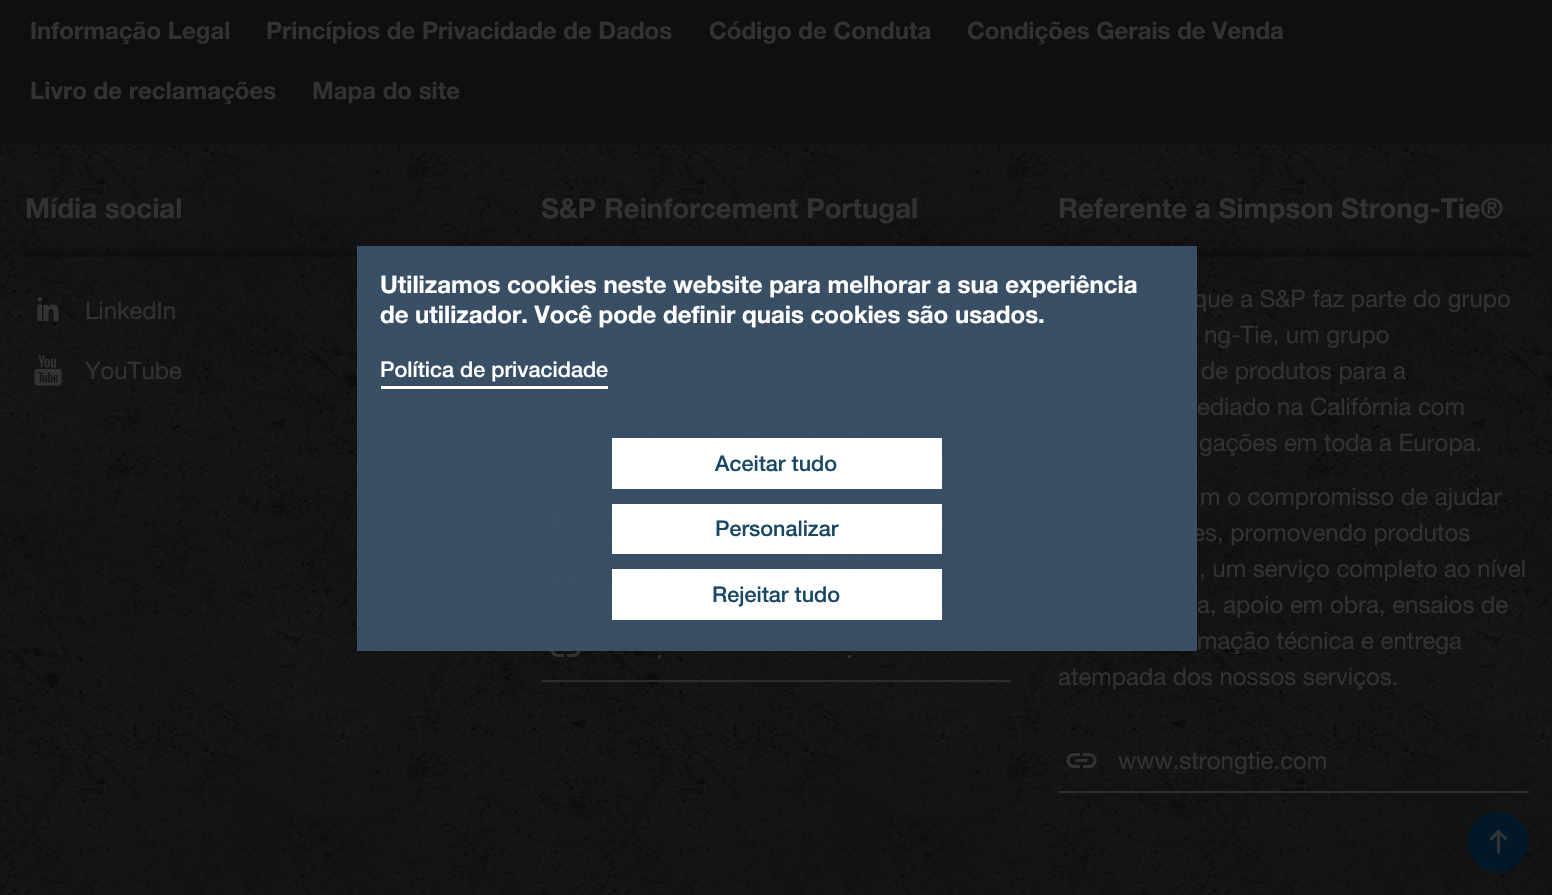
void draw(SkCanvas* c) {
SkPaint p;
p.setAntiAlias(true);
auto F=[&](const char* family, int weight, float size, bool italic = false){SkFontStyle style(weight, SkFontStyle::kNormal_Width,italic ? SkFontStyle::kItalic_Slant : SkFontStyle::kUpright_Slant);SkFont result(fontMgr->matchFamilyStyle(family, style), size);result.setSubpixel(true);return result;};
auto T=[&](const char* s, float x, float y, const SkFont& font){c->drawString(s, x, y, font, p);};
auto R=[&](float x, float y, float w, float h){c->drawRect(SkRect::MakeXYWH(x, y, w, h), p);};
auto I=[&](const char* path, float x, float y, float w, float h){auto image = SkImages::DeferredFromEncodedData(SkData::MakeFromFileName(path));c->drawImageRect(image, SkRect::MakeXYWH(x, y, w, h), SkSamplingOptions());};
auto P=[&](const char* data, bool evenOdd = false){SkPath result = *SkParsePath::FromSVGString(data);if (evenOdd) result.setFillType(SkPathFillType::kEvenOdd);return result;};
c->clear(0xff0f0f0f);
auto f1 = F("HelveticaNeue",700,24);
p.setColor(0xff323232);
T("Informação Legal",30,39,f1);
T("Princípios de Privacidade de Dados",266,39,f1);
T("Código de Conduta",709,39,f1);
T("Condições Gerais de Venda",967,39,f1);
T("Livro de reclamações",30,99,f1);
T("Mapa do site",312,99,f1);
I("1.png",0,144,1552,751);
p.setColor(0xff0f0f0f);
R(24,251,471,6);
auto f2 = F("HelveticaNeue",700,27.6);
p.setColor(0xff323232);
T("Mídia social",25,218,f2);
I("2.png",37,297,22,24);
auto f3 = F("HelveticaNeue",400,24);
T("LinkedIn",85,319,f3);
I("3.png",34,355,28,31);
T("YouTube",85,379,f3);
p.setColor(0xff0f0f0f);
R(542,251,469,6);
p.setColor(0xff323232);
T("S&P Reinforcement Portugal",541,218,f2);
I("4.png",552,513,27,27);
p.setColor(0xff2c2c2c);
R(542,557,469,2);
I("5.png",550,576,31,24);
R(542,618,469,2);
I("6.png",550,642,31,15);
R(542,680,469,2);
p.setColor(0xff323232);
T(".",656,658,f3);
T(".",846,658,f3);
p.setColor(0xff0f0f0f);
R(1058,251,471,6);
p.setColor(0xff323232);
T("Referente a Simpson Strong-Tie®",1058,218,f2);
T("que a S&P faz parte do grupo",1193,307,f3);
T("ng-Tie, um grupo",1204,343,f3);
T("de produtos para a",1201,379,f3);
T("ediado na Califórnia com",1197,415,f3);
T("gações em toda a Europa.",1199,451,f3);
T("m o compromisso de ajudar",1200,505,f3);
T("es, promovendo produtos",1192,541,f3);
T(", um serviço completo ao nível",1199,577,f3);
T("a, apoio em obra, ensaios de",1197,613,f3);
T("mação técnica e entrega",1197,649,f3);
T("atempada dos nossos serviços.",1058,685,f3);
I("7.png",1066,753,31,15);
p.setColor(0xff2c2c2c);
R(1058,791,471,2);
p.setColor(0xff323232);
T("www.strongtie.com",1118,769,f3);
p.setColor(0xf23a5168);
R(357,246,840,405);
p.setColor(0xffffffff);
T("Utilizamos cookies neste website para melhorar a sua experiência",380,293,f1);
T("de utilizador. Você pode definir quais cookies são usados.",380,323,f1);
R(381,386,227,3);
auto f4 = F("HelveticaNeue",500,21.6);
T("Política de privacidade",380,377,f4);
R(612,438,330,51);
p.setColor(0xff184865);
T("Aceitar tudo",715,471,f4);
p.setColor(0xffffffff);
R(612,504,330,50);
p.setColor(0xff184865);
T("Personalizar",715,536,f4);
p.setColor(0xffffffff);
R(612,569,330,51);
p.setColor(0xff184865);
T("Rejeitar tudo",712,602,f4);
p.setColor(0xff001827);
c->drawPath(P("M1468 842c0-17 14-30 30-30c17 0 30 13 30 30c0 16-13 30-30 30c-16 0-30-14-30-30z"),p);
I("8.png",1489,829,19,25);
}
